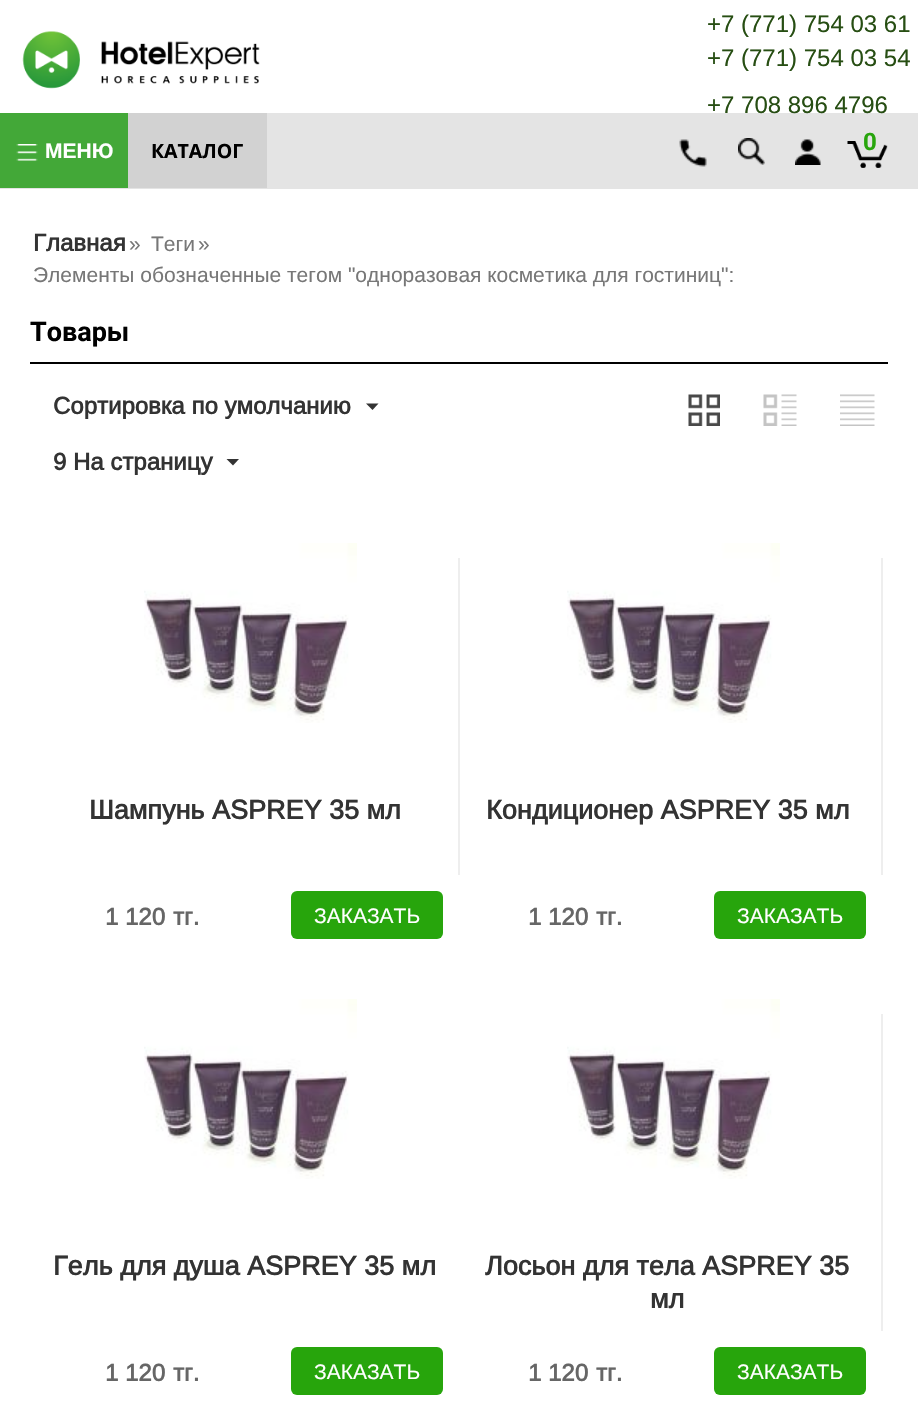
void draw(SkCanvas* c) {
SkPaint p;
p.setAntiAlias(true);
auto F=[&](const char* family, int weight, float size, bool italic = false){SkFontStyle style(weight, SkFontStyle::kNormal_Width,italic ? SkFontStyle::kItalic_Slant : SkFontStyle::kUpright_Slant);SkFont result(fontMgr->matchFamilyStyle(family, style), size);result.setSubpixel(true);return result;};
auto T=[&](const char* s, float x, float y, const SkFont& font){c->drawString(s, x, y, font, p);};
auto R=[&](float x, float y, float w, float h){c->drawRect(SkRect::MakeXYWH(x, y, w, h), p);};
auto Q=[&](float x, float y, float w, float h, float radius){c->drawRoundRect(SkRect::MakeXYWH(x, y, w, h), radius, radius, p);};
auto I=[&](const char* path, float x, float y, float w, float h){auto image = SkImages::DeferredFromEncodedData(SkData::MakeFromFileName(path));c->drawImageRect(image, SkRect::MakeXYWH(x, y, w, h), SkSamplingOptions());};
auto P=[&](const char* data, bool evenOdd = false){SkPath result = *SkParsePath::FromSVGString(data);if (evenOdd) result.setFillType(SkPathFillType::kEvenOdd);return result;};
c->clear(0xffffffff);
p.setColor(0xffe4e4e4);
R(0,113,918,76);
p.setColor(0xff43a838);
R(0,113,128,75);
I("1.png",16,144,22,17);
auto f1 = F("Liberation Sans",700,21);
p.setColor(0xffffffff);
T("МЕНЮ",45,158,f1);
p.setColor(0xffd2d2d2);
R(128,113,139,75);
auto f2 = F("Open Sans",700,19.5);
p.setColor(0xff000000);
T("КАТАЛОГ",151,158,f2);
I("2.png",679,139,28,28);
I("3.png",738,138,27,27);
I("4.png",22,31,238,58);
auto f3 = F("Arimo",400,24);
p.setColor(0xff274e13);
T("+7 (771) 754 03 61",707,32,f3);
T("+7 (771) 754 03 54",707,66,f3);
T("+7 708 896 4796",707,113,f3);
I("5.png",847,141,41,27);
auto f4 = F("Roboto",700,24);
p.setColor(0xff27a50c);
T("0",863,150,f4);
I("6.png",795,139,26,26);
auto f5 = F("Arimo",700,24);
p.setColor(0xff333333);
T("Главная",33,251,f5);
auto f6 = F("Arimo",400,21);
p.setColor(0xff777777);
T("»",129,251,f6);
T("Теги",151,251,f6);
T("»",198,251,f6);
T("Элементы обозначенные тегом \"одноразовая косметика для гостиниц\":",33,282,f6);
p.setColor(0xff000000);
R(30,362,858,2);
auto f7 = F("Roboto",700,27);
T("Товары",30,341,f7);
p.setColor(0xff333333);
T("Сортировка по умолчанию",53,414,f5);
c->drawPath(P("M372.5 410l-6.5-6.5h12.5z"),p);
I("7.png",688,394,32,32);
I("8.png",763,394,34,32);
I("9.png",840,394,35,32);
T("9 На страницу",53,470,f5);
c->drawPath(P("M233 465.5l-6.5-6.5h12.5z"),p);
I("10.png",144,543,213,180);
auto f8 = F("Arimo",700,27);
T("Шампунь ASPREY 35 мл",89,819,f8);
p.setColor(0xff666666);
T("1 120",105,925,f5);
T("тг.",173,925,f5);
p.setColor(0xff27a50c);
Q(291,891,152,48,6);
p.setColor(0xffffffff);
T("ЗАКАЗАТЬ",314,923,f6);
p.setColor(0xffeeeeee);
R(458,558,2,317);
I("11.png",567,543,213,180);
p.setColor(0xff333333);
T("Кондиционер ASPREY 35 мл",486,819,f8);
p.setColor(0xff666666);
T("1 120",528,925,f5);
T("тг.",596,925,f5);
p.setColor(0xff27a50c);
Q(714,891,152,48,6);
p.setColor(0xffffffff);
T("ЗАКАЗАТЬ",737,923,f6);
p.setColor(0xffeeeeee);
R(881,558,2,317);
I("10.png",144,999,213,180);
p.setColor(0xff333333);
T("Гель для душа ASPREY 35 мл",53,1275,f8);
p.setColor(0xff666666);
T("1 120",105,1381,f5);
T("тг.",173,1381,f5);
p.setColor(0xff27a50c);
Q(291,1347,152,48,6);
p.setColor(0xffffffff);
T("ЗАКАЗАТЬ",314,1379,f6);
I("11.png",567,999,213,180);
p.setColor(0xff333333);
T("Лосьон для тела ASPREY 35",485,1275,f8);
T("мл",650,1308,f8);
p.setColor(0xff666666);
T("1 120",528,1381,f5);
T("тг.",596,1381,f5);
p.setColor(0xff27a50c);
Q(714,1347,152,48,6);
p.setColor(0xffffffff);
T("ЗАКАЗАТЬ",737,1379,f6);
p.setColor(0xffeeeeee);
R(881,1014,2,317);
}
